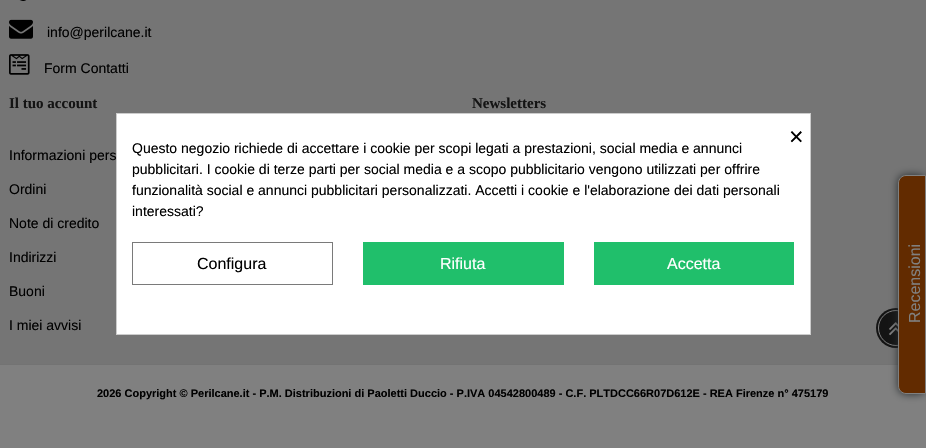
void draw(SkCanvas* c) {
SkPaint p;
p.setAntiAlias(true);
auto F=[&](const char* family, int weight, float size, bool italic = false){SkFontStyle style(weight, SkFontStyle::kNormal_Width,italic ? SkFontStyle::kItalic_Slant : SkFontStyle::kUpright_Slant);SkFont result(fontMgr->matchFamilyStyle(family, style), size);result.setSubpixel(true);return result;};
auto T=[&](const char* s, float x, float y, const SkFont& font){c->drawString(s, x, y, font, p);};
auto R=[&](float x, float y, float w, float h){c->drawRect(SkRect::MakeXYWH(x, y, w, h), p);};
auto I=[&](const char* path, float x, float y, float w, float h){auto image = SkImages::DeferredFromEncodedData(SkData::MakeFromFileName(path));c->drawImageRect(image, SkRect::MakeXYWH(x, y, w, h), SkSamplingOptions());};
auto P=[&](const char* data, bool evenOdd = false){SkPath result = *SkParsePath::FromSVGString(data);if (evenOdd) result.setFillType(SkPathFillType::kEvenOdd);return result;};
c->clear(0xff808080);
p.setColor(0xff757575);
R(0,0,926,364);
I("1.png",19,0,8,1);
I("2.png",9,19,24,20);
auto f1 = F("Liberation Sans",400,14);
p.setColor(0xff000000);
T("info@perilcane.it",47,37,f1);
I("3.png",9,54,21,21);
T("Form Contatti",44,73,f1);
auto f2 = F("Liberation Serif",700,15);
p.setColor(0xff141414);
T("Il tuo account",9,108,f2);
p.setColor(0xff000000);
T("Informazioni pers",9,160,f1);
T("Ordini",9,194,f1);
T("Note di credito",9,228,f1);
T("Indirizzi",9,262,f1);
T("Buoni",9,296,f1);
T("I miei avvisi",9,330,f1);
p.setColor(0xff141414);
T("Newsletters",472,108,f2);
p.setColor(0xff737373);
R(0,364,898,1);
p.setColor(0xff141414);
c->drawCircle(896,328,20,p);
p.setStroke(true);
p.setStrokeWidth(1);
p.setColor(0xff808080);
c->drawCircle(896,328,17.5,p);
I("4.png",889,322,9,14);
p.setStroke(false);
p.setColor(0xff262b2d);
p.setMaskFilter(SkMaskFilter::MakeBlur(kNormal_SkBlurStyle, 4));
c->drawRoundRect(SkRect::MakeXYWH(898,175,28,219),8,8,p);
p.setMaskFilter(nullptr);
p.setColor(0xff622b00);
c->drawPath(P("M906 175.5h19.5v218h-19.5c-4 0-7.5-3.5-7.5-7.5v-203c0-4 3.5-7.5 7.5-7.5z"),p);
p.setStroke(true);
p.setColor(0xff808080);
c->drawPath(P("M906 175.5h19.5v218h-19.5c-4 0-7.5-3.5-7.5-7.5v-203c0-4 3.5-7.5 7.5-7.5z"),p);
auto f3 = F("Liberation Sans",400,16);
p.setStroke(false);
c->save();
c->rotate(-90,920,323);
T("Recensioni",920,323,f3);
c->restore();
auto f4 = F("Liberation Sans",700,11);
p.setColor(0xff000000);
T("2026 Copyright © Perilcane.it - P.M. Distribuzioni di Paoletti Duccio - P.IVA 04542800489 - C.F. PLTDCC66R07D612E - REA Firenze n° 475179",97,397,f4);
p.setColor(0xffffffff);
c->drawRect(SkRect::MakeXYWH(116.5,113.5,694,221),p);
p.setStroke(true);
p.setColor(0xffcccccc);
c->drawRect(SkRect::MakeXYWH(116.5,113.5,694,221),p);
auto f5 = F("Liberation Sans",400,25);
p.setStroke(false);
p.setColor(0xff000000);
T("×",789,145,f5);
T("Questo negozio richiede di accettare i cookie per scopi legati a prestazioni, social media e annunci",132,153,f1);
T("pubblicitari. I cookie di terze parti per social media e a scopo pubblicitario vengono utilizzati per offrire",132,174,f1);
T("funzionalità social e annunci pubblicitari personalizzati. Accetti i cookie e l'elaborazione dei dati personali",132,195,f1);
T("interessati?",132,216,f1);
p.setStroke(true);
p.setColor(0xff7a7a7a);
c->drawRect(SkRect::MakeXYWH(132.5,242.5,200,42),p);
p.setStroke(false);
p.setColor(0xff000000);
T("Configura",197,269,f3);
p.setColor(0xff20bf6b);
R(363,242,201,43);
p.setColor(0xffffffff);
T("Rifiuta",440,269,f3);
p.setColor(0xff20bf6b);
R(594,242,200,43);
p.setColor(0xffffffff);
T("Accetta",667,269,f3);
}
